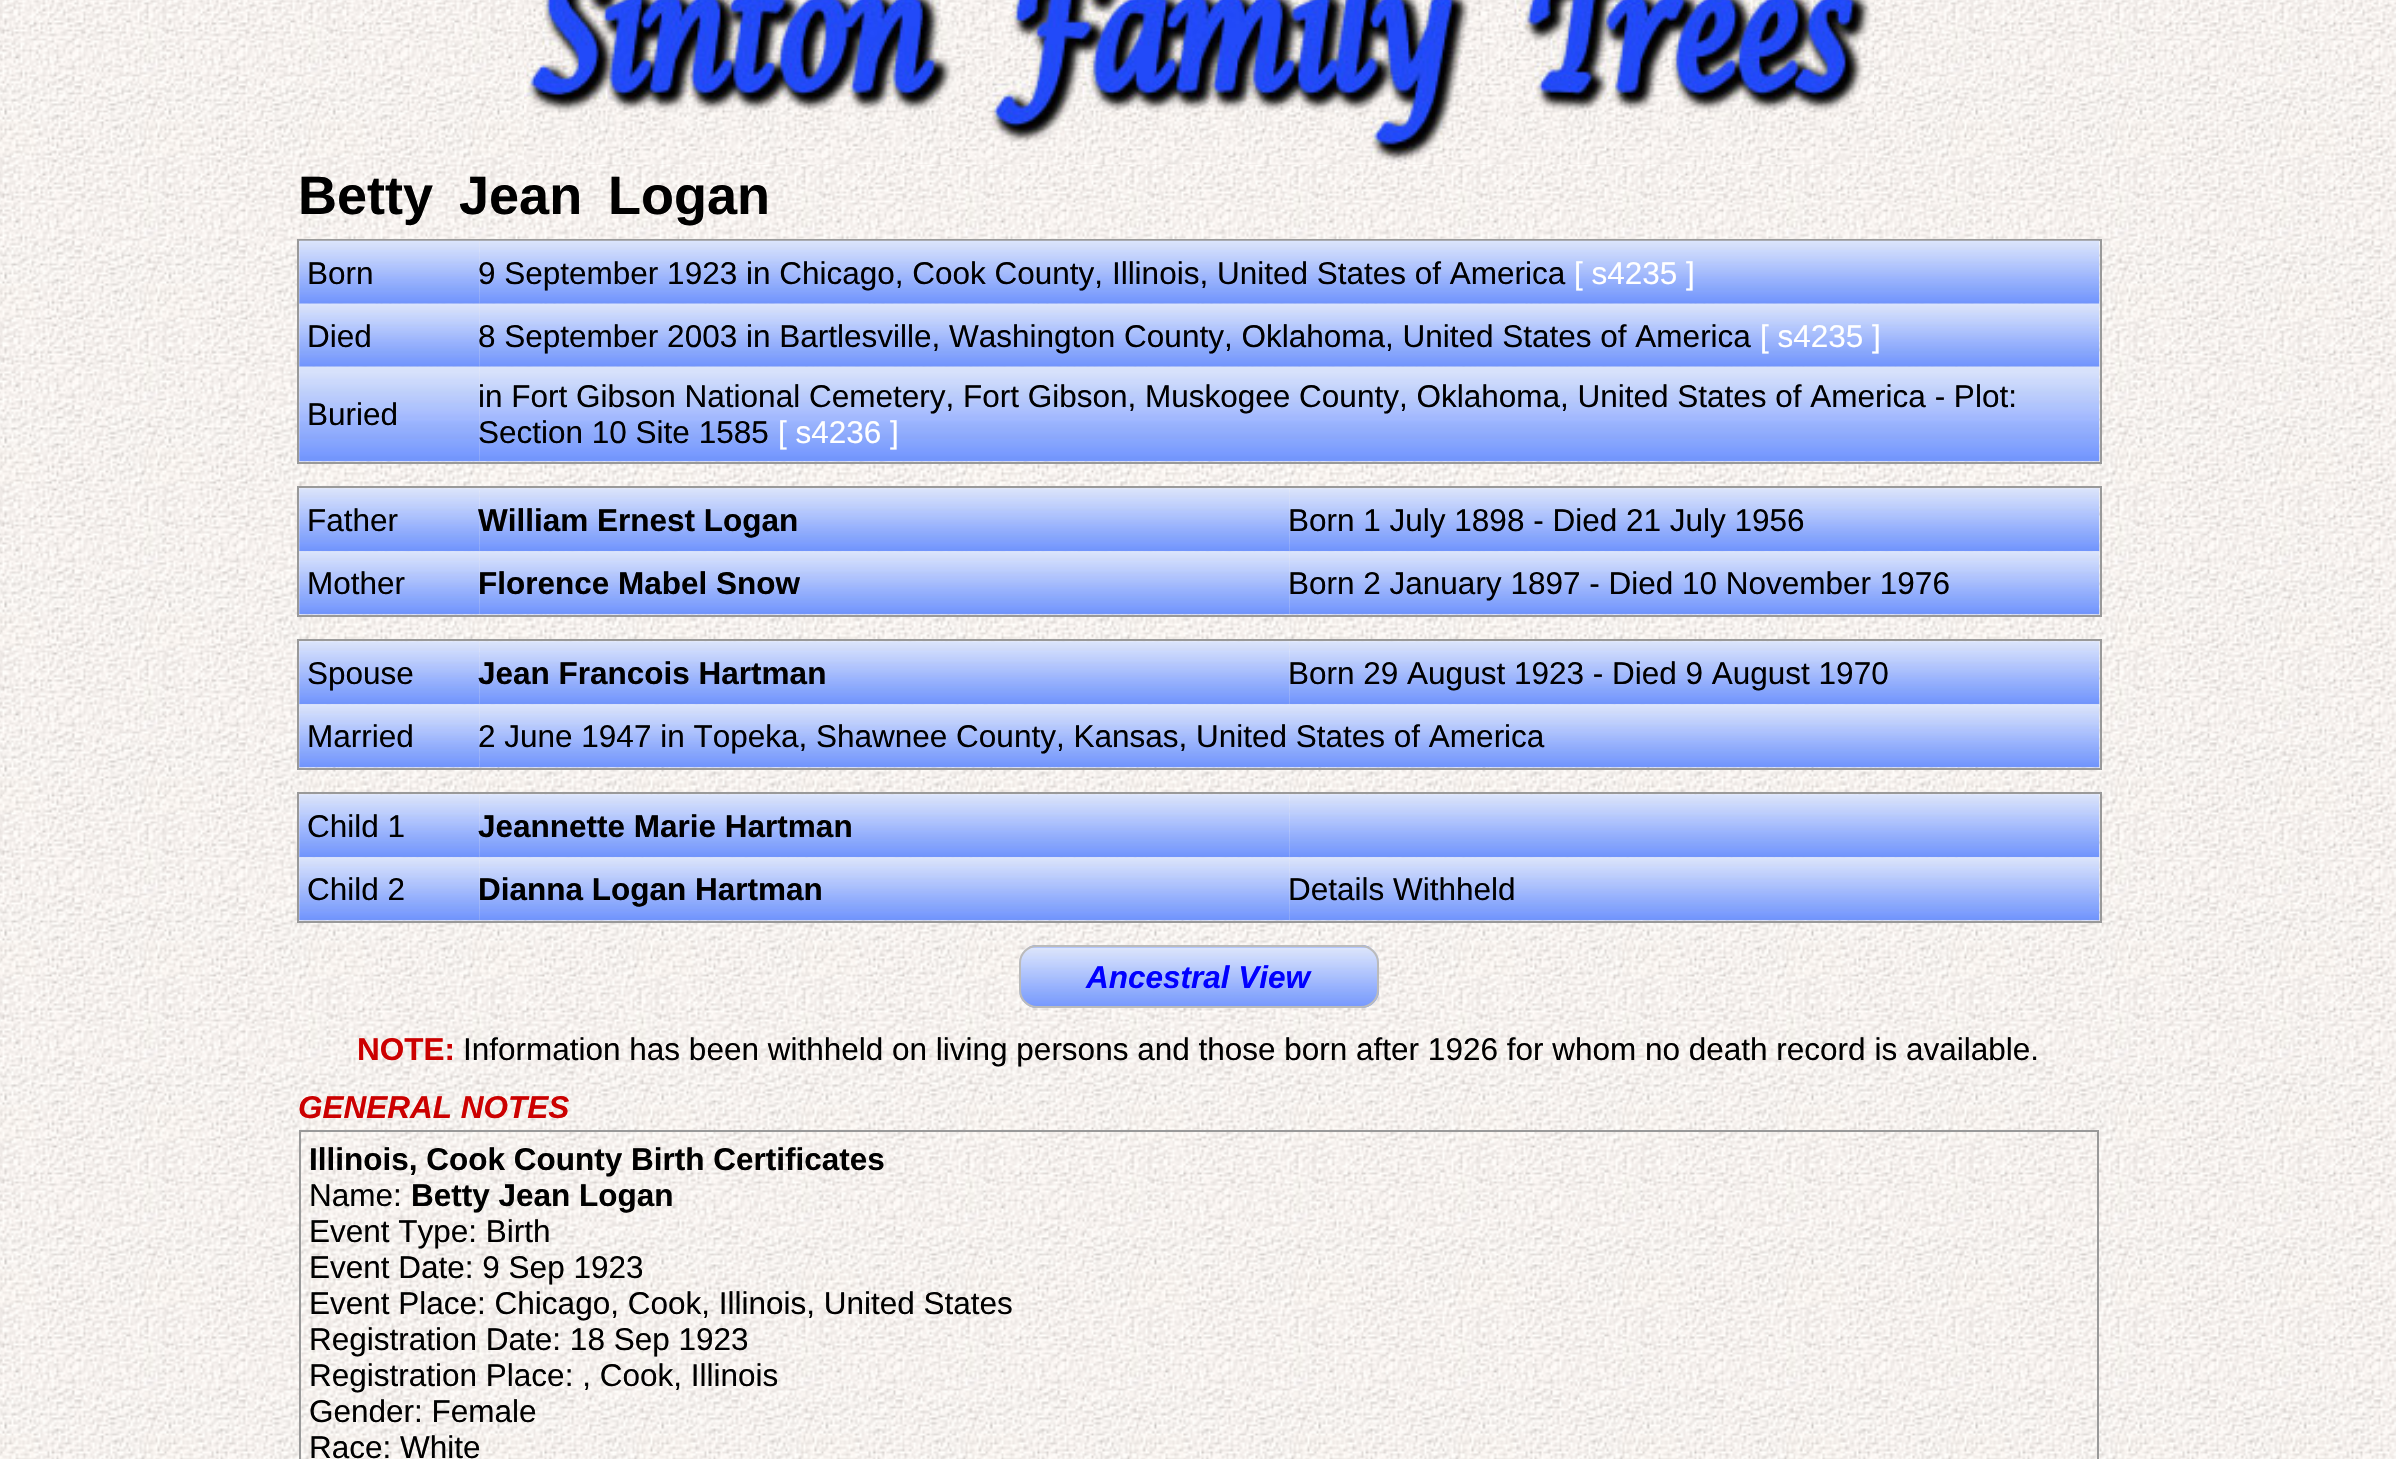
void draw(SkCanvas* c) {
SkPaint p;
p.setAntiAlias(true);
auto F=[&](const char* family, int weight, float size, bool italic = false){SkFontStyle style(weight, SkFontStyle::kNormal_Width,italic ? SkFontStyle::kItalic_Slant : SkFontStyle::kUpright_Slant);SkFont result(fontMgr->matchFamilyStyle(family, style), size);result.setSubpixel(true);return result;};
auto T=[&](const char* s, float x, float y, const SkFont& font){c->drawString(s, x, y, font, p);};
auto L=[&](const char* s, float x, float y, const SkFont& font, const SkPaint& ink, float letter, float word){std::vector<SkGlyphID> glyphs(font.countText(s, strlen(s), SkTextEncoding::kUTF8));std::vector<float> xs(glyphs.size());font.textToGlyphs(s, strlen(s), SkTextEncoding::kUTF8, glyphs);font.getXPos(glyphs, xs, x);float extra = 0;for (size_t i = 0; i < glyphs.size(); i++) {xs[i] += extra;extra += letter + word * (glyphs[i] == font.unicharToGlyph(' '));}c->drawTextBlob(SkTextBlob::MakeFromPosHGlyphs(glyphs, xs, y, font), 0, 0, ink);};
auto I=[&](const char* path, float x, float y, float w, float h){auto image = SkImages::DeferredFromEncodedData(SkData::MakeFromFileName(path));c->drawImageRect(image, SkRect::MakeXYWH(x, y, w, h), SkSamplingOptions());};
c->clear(0xffffffff);
I("1.png",0,0,2396,1459);
I("2.png",524,0,1351,165);
auto f1 = F("Liberation Sans",700,54);
p.setColor(0xff000000);
L("Betty Jean Logan",298,214,f1,p,0,11);
p.setStroke(true);
p.setStrokeWidth(2);
p.setColor(0xff999999);
c->drawRect(SkRect::MakeXYWH(298,240,1803,223),p);
I("3.png",299,240,181,64);
auto f2 = F("Liberation Sans",400,31.5);
p.setStroke(false);
p.setColor(0xff000000);
T("Born",307,284,f2);
I("4.png",479,240,1621,64);
T("9 September 1923 in Chicago, Cook County, Illinois, United States of America",478,284,f2);
p.setColor(0xffffffff);
T("[ s4235 ]",1574,284,f2);
I("5.png",299,303,181,64);
p.setColor(0xff000000);
T("Died",307,347,f2);
I("6.png",479,303,1621,64);
T("8 September 2003 in Bartlesville, Washington County, Oklahoma, United States of America",478,347,f2);
p.setColor(0xffffffff);
T("[ s4235 ]",1760,347,f2);
I("7.png",299,366,181,96);
p.setColor(0xff000000);
T("Buried",307,425,f2);
I("8.png",479,366,1621,96);
T("in Fort Gibson National Cemetery, Fort Gibson, Muskogee County, Oklahoma, United States of America - Plot:",478,407,f2);
T("Section 10 Site 1585",478,443,f2);
p.setColor(0xffffffff);
T("[ s4236 ]",778,443,f2);
p.setStroke(true);
p.setColor(0xff999999);
c->drawRect(SkRect::MakeXYWH(298,487,1803,129),p);
I("9.png",299,488,181,64);
p.setStroke(false);
p.setColor(0xff000000);
T("Father",307,531,f2);
I("10.png",479,488,811,64);
auto f3 = F("Liberation Sans",700,31.5);
T("William Ernest Logan",478,531,f3);
I("11.png",1289,488,811,64);
T("Born 1 July 1898 - Died 21 July 1956",1288,531,f2);
I("12.png",299,551,181,64);
T("Mother",307,594,f2);
I("13.png",479,551,811,64);
T("Florence Mabel Snow",478,594,f3);
I("14.png",1289,551,811,64);
T("Born 2 January 1897 - Died 10 November 1976",1288,594,f2);
p.setStroke(true);
p.setColor(0xff999999);
c->drawRect(SkRect::MakeXYWH(298,640,1803,129),p);
I("15.png",299,641,181,64);
p.setStroke(false);
p.setColor(0xff000000);
T("Spouse",307,684,f2);
I("16.png",479,641,811,64);
T("Jean Francois Hartman",478,684,f3);
I("17.png",1289,641,811,64);
T("Born 29 August 1923 - Died 9 August 1970",1288,684,f2);
I("18.png",299,704,181,64);
T("Married",307,747,f2);
I("19.png",479,704,1621,64);
T("2 June 1947 in Topeka, Shawnee County, Kansas, United States of America",478,747,f2);
p.setStroke(true);
p.setColor(0xff999999);
c->drawRect(SkRect::MakeXYWH(298,793,1803,129),p);
I("20.png",299,794,181,64);
p.setStroke(false);
p.setColor(0xff000000);
T("Child 1",307,837,f2);
I("21.png",479,794,811,64);
T("Jeannette Marie Hartman",478,837,f3);
I("22.png",1289,794,811,64);
I("23.png",299,857,181,64);
T("Child 2",307,900,f2);
I("24.png",479,857,811,64);
T("Dianna Logan Hartman",478,900,f3);
I("25.png",1289,857,811,64);
T("Details Withheld",1288,900,f2);
I("26.png",1019,945,361,63);
p.setStroke(true);
p.setColor(0xffbbbbbb);
c->drawRoundRect(SkRect::MakeXYWH(1020,946,358,61),17,17,p);
auto f4 = F("Liberation Sans",700,31.5,true);
p.setStroke(false);
p.setColor(0xff0000ff);
T("Ancestral View",1086,988,f4);
p.setColor(0xffcc0000);
T("NOTE:",357,1060,f3);
p.setColor(0xff000000);
T("Information has been withheld on living persons and those born after 1926 for whom no death record is available.",463,1060,f2);
p.setColor(0xffcc0000);
T("GENERAL NOTES",298,1118,f4);
p.setStroke(true);
p.setColor(0xff999999);
c->drawRect(SkRect::MakeXYWH(300,1131,1798,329),p);
p.setStroke(false);
p.setColor(0xff000000);
T("Illinois, Cook County Birth Certificates",309,1170,f3);
T("Name:",309,1206,f2);
T("Betty Jean Logan",411,1206,f3);
T("Event Type: Birth",309,1242,f2);
T("Event Date: 9 Sep 1923",309,1278,f2);
T("Event Place: Chicago, Cook, Illinois, United States",309,1314,f2);
T("Registration Date: 18 Sep 1923",309,1350,f2);
T("Registration Place: , Cook, Illinois",309,1386,f2);
T("Gender: Female",309,1422,f2);
T("Race: White",309,1458,f2);
}
